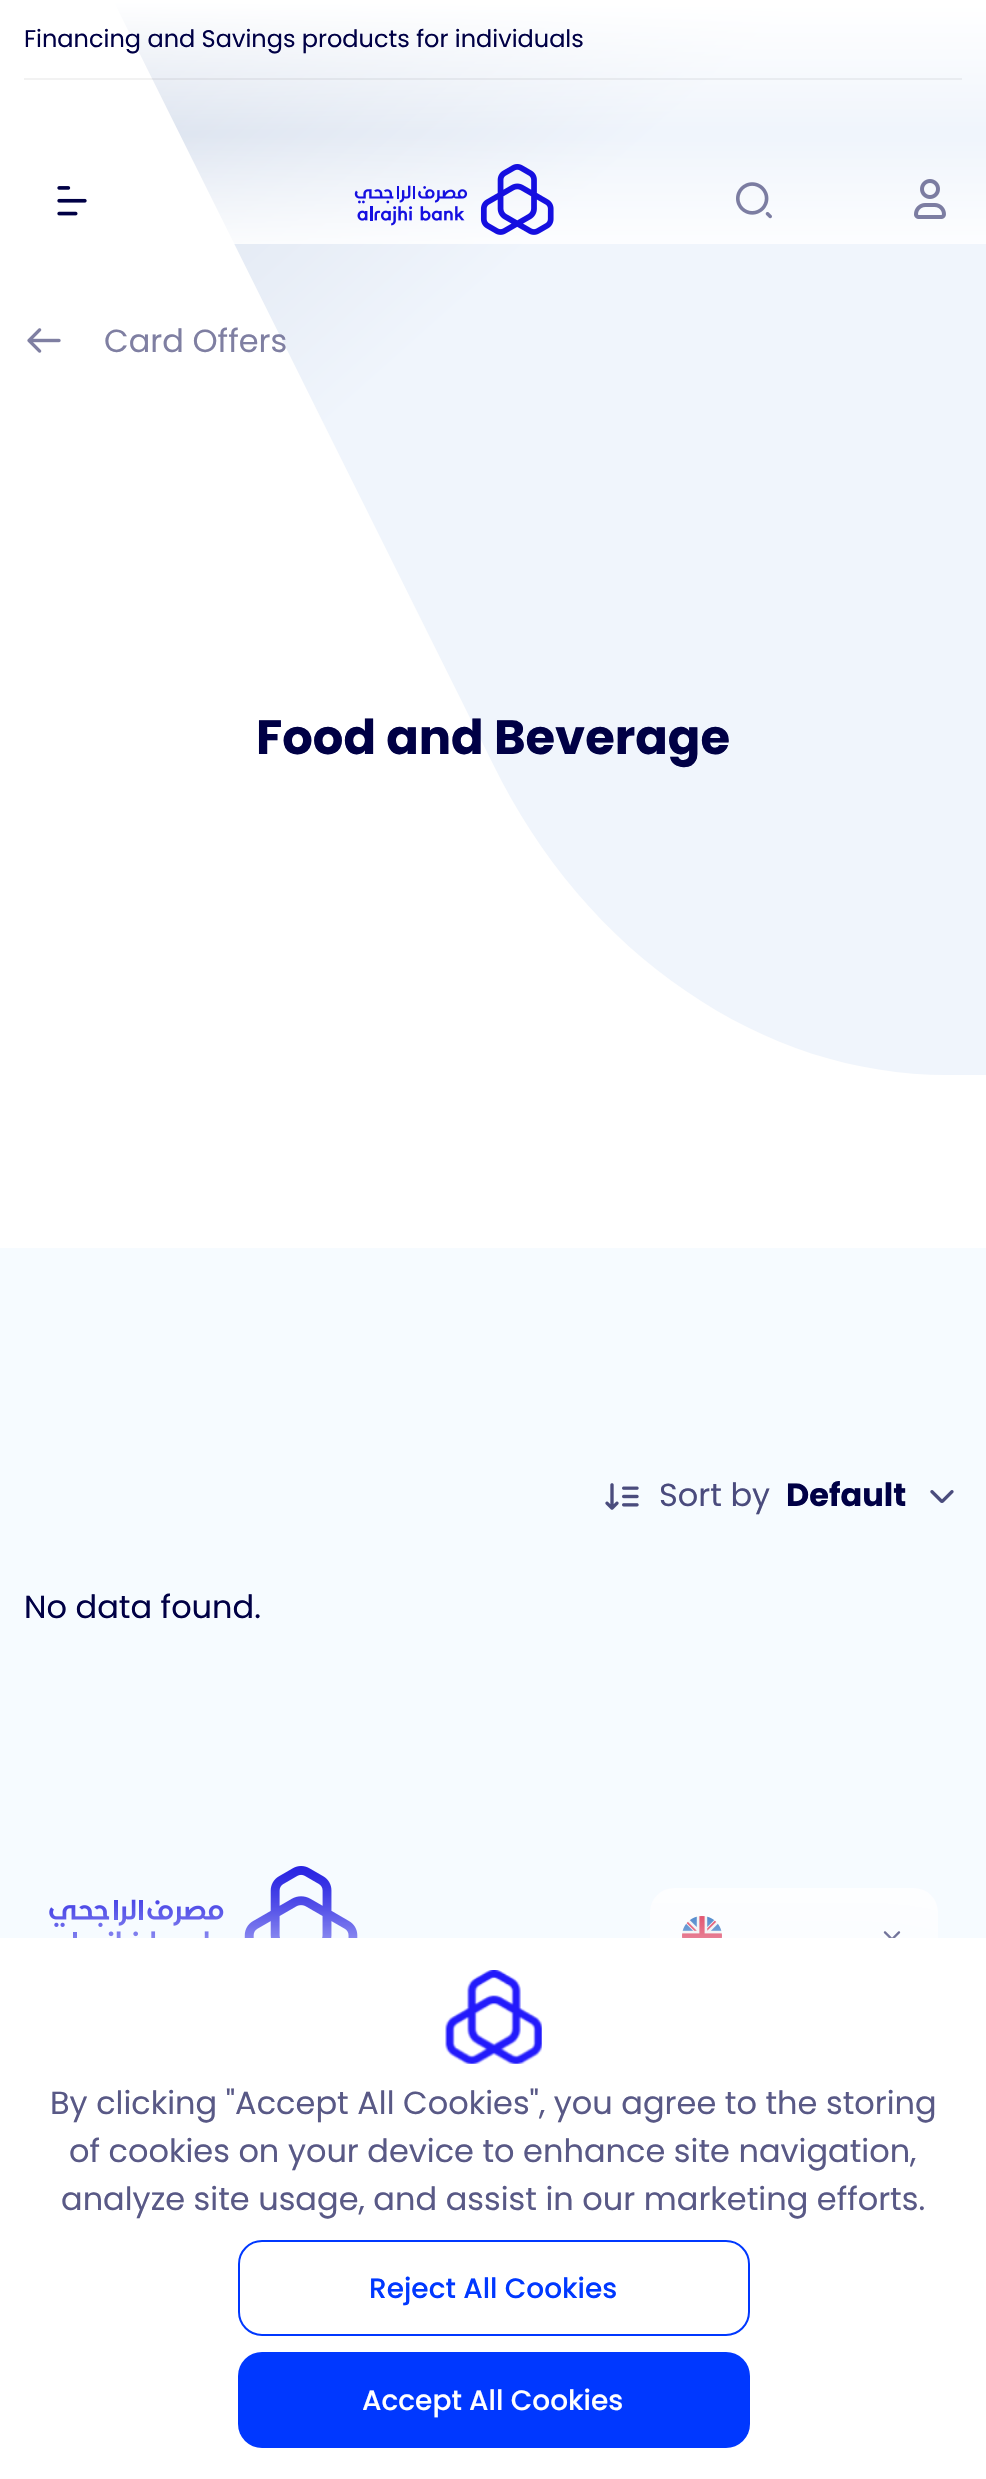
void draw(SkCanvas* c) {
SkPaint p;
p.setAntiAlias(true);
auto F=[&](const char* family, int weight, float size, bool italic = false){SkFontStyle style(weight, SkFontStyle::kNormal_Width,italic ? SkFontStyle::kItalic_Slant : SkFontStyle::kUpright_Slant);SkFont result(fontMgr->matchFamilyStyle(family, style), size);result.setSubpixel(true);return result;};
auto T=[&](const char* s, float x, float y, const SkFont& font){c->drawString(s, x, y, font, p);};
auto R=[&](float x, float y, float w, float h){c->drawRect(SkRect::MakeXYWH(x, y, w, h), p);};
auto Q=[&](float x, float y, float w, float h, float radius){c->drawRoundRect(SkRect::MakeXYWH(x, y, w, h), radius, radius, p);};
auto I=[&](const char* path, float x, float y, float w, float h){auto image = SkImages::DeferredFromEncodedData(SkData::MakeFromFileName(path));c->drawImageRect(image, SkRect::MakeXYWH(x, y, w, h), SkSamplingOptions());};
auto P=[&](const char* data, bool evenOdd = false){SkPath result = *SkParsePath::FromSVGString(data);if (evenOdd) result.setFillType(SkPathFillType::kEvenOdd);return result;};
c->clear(0xfff6fbff);
p.setColor(0xffffffff);
R(0,1,986,1247);
{
const SkColor colors[] = {0xffd3dbe9,0xfff0f5fc};
const float stops[] = {0,.35};
const SkPoint ends[] = {{-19,17}, {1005,1167}};
p.setShader(SkGradientShader::MakeLinear(ends, colors, stops, 2, SkTileMode::kClamp));
p.setAlpha(255);
}
c->drawPath(P("M493 764c46 94 113 173 193 227c80 55 169 84 262 84h38v-1075h-873z"),p);
{
const SkColor colors[] = {0xffffffff,0x00ffffff,0xffffffff};
const float stops[] = {0,.5,1};
const SkPoint ends[] = {{493,0}, {493,268}};
p.setShader(SkGradientShader::MakeLinear(ends, colors, stops, 3, SkTileMode::kClamp));
p.setAlpha(255);
}
R(0,0,986,244);
p.setShader(nullptr);
p.setColor(0x0d000000);
R(24,78,938,2);
auto f1 = F("Poppins",400,24);
p.setColor(0xff000045);
T("Financing and Savings products for individuals",24,47,f1);
I("1.png",57,186,30,30);
I("2.png",354,164,200,71);
I("3.png",736,182,36,37);
I("4.png",914,179,32,40);
I("5.png",27,328,34,25);
auto f2 = F("Poppins",400,32);
p.setColor(0xff7f7fa2);
T("Card Offers",104,352,f2);
auto f3 = F("Poppins",700,48);
p.setColor(0xff000045);
T("Food and Beverage",256,754,f3);
I("6.png",605,1483,34,27);
p.setColor(0xff4a4b7d);
T("Sort by",659,1506,f2);
auto f4 = F("Poppins",700,32);
p.setColor(0xff000045);
T("Default",786,1506,f4);
I("7.png",930,1490,24,13);
T("No data found.",24,1618,f2);
I("8.png",49,1866,309,72);
p.setColor(0xffffffff);
Q(650,1888,288,96,24);
I("9.png",682,1916,40,22);
I("10.png",883,1931,18,7);
p.setColor(0xfff7fbff);
p.setMaskFilter(SkMaskFilter::MakeBlur(kNormal_SkBlurStyle, 50));
c->drawRect(SkRect::MakeXYWH(0,1938,986,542),p);
p.setMaskFilter(nullptr);
p.setColor(0xffffffff);
R(0,1938,986,541);
I("11.png",445,1970,97,94);
p.setColor(0xff595986);
T("By clicking \"Accept All Cookies\", you agree to the storing",50,2114,f2);
T("of cookies on your device to enhance site navigation,",69,2162,f2);
T("analyze site usage, and assist in our marketing efforts.",61,2210,f2);
p.setStroke(true);
p.setStrokeWidth(2);
p.setColor(0xff0038ff);
c->drawRoundRect(SkRect::MakeXYWH(239,2241,510,94),23,23,p);
auto f5 = F("Poppins",500,28);
p.setStroke(false);
T("Reject All Cookies",369,2298,f5);
Q(238,2352,512,96,24);
p.setColor(0xffffffff);
T("Accept All Cookies",362,2410,f5);
}
